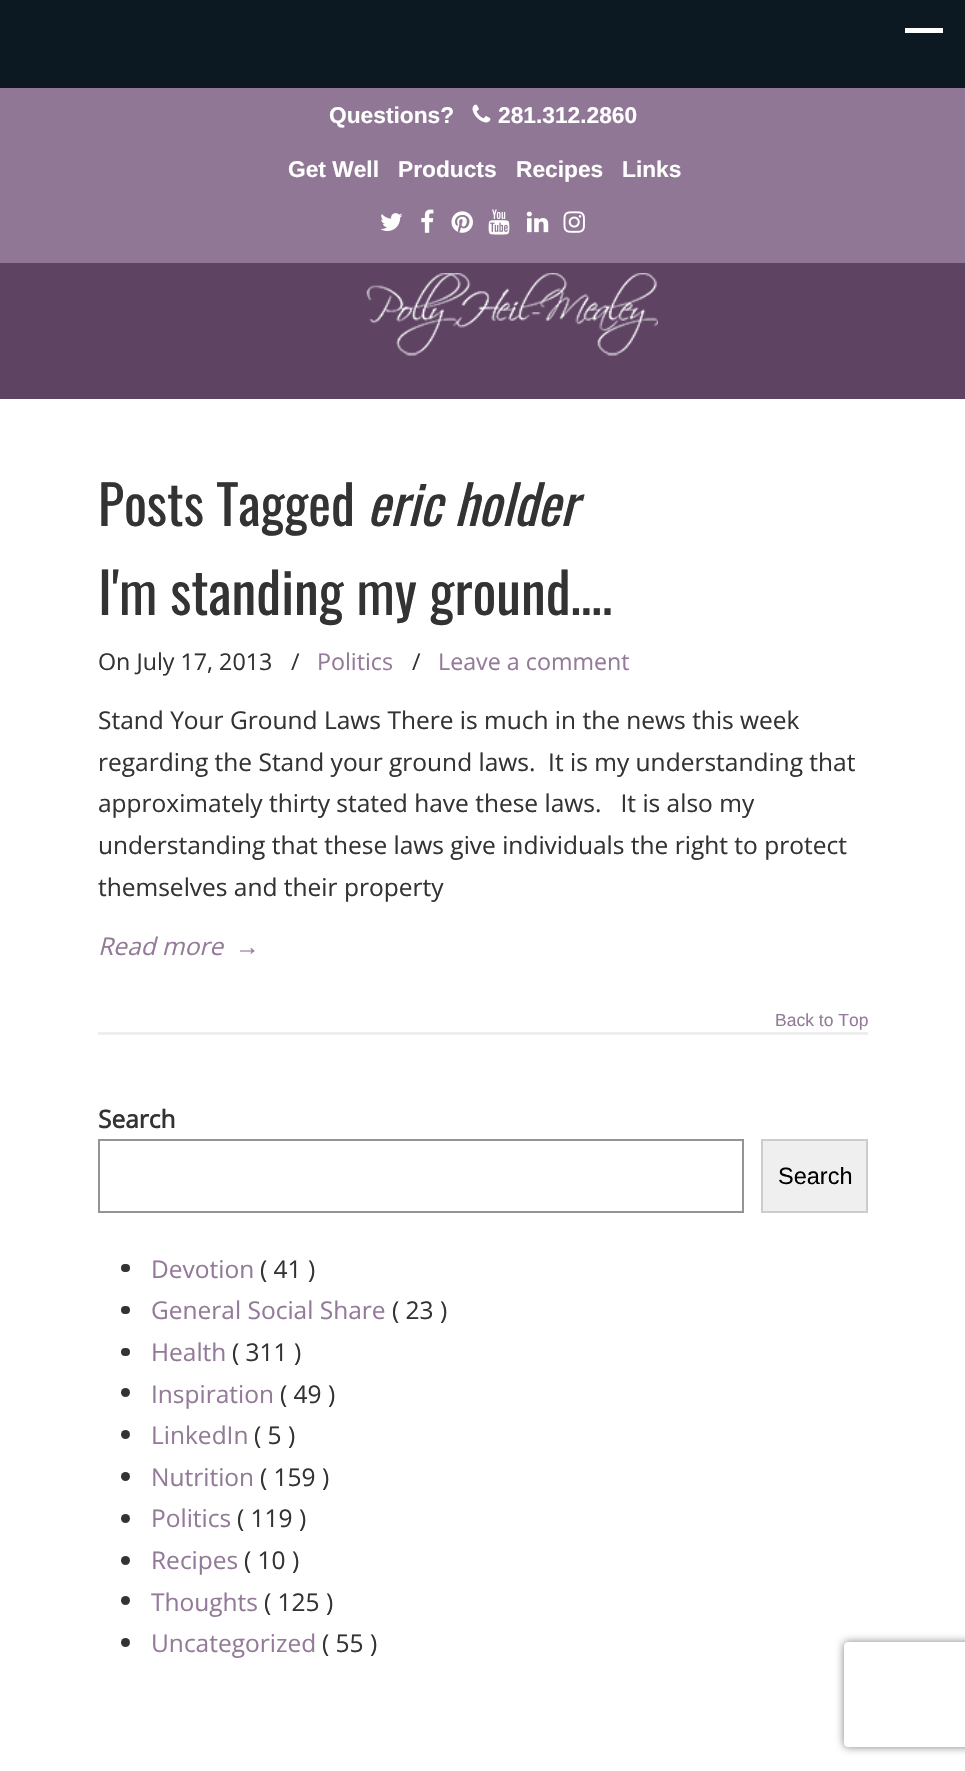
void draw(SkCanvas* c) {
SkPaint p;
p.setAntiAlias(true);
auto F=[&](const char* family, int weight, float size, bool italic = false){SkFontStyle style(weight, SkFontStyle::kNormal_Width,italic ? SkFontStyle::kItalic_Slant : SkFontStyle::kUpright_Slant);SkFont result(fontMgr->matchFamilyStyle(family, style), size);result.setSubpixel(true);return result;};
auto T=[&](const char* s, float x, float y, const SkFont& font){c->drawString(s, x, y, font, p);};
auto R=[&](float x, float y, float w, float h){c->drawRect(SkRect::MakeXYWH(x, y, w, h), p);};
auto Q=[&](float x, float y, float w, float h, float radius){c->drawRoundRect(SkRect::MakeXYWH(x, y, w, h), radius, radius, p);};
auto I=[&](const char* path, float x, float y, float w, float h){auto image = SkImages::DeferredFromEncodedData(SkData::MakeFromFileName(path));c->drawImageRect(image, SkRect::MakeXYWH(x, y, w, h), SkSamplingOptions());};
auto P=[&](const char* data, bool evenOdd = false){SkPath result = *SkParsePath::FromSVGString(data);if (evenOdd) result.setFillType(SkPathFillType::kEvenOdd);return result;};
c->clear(0xffffffff);
p.setColor(0xff0c1923);
R(0,0,965,88);
p.setColor(0xffffffff);
R(905,28,38,5);
p.setColor(0xff5e4363);
R(0,263,965,136);
p.setColor(0xff917796);
R(0,88,965,175);
auto f1 = F("Liberation Sans",700,22.75);
p.setColor(0xffffffff);
T("Questions?",329,123,f1);
I("1.png",472,104,19,19);
T("281.312.2860",498,123,f1);
T("Get Well",288,177,f1);
T("Products",398,177,f1);
T("Recipes",516,177,f1);
T("Links",622,177,f1);
I("2.png",380,213,23,18);
I("3.png",421,209,13,24);
I("4.png",451,211,22,22);
I("5.png",488,209,22,26);
I("6.png",526,211,23,22);
I("7.png",563,211,22,22);
I("8.png",366,273,292,83);
auto f2 = F("Oswald",400,54);
p.setColor(0xff333333);
T("Posts Tagged",98,526,f2);
auto f3 = F("Oswald",400,54,true);
T("eric holder",367,526,f3);
auto f4 = F("Oswald",400,56.25);
T("I'm standing my ground….",98,615,f4);
auto f5 = F("Open Sans",400,23.25);
T("On July 17, 2013",98,670,f5);
T("/",291,670,f5);
p.setColor(0xff947a99);
T("Politics",317,670,f5);
p.setColor(0xff333333);
T("/",412,670,f5);
p.setColor(0xff947a99);
T("Leave a comment",438,670,f5);
auto f6 = F("Open Sans",400,24.5);
p.setColor(0xff333333);
T("Stand Your Ground Laws There is much in the news this week",98,729,f6);
T("regarding the Stand your ground laws.  It is my understanding that",98,771,f6);
T("approximately thirty stated have these laws.   It is also my",98,812,f6);
T("understanding that these laws give individuals the right to protect",98,854,f6);
T("themselves and their property",98,896,f6);
auto f7 = F("Open Sans",400,24.5,true);
p.setColor(0xff947a99);
T("Read more",98,955,f7);
auto f8 = F("Liberation Serif",400,24.5);
T("→",235,955,f8);
p.setColor(0xffeeeeee);
R(98,1032,770,3);
auto f9 = F("Liberation Sans",400,17.5);
p.setColor(0xff947a99);
T("Back to Top",775,1026,f9);
auto f10 = F("Open Sans",700,24.5);
p.setColor(0xff333333);
T("Search",98,1128,f10);
p.setStroke(true);
p.setStrokeWidth(2);
p.setColor(0xff949494);
c->drawRect(SkRect::MakeXYWH(99,1140,644,72),p);
p.setStroke(false);
p.setColor(0xffefefef);
c->drawRect(SkRect::MakeXYWH(762,1140,105,72),p);
p.setStroke(true);
p.setColor(0xffcccccc);
c->drawRect(SkRect::MakeXYWH(762,1140,105,72),p);
auto f11 = F("Liberation Sans",400,23.5);
p.setStroke(false);
p.setColor(0xff000000);
T("Search",778,1184,f11);
p.setColor(0xff333333);
Q(121,1264,9,8,4);
p.setColor(0xff947a99);
T("Devotion",151,1278,f6);
p.setColor(0xff333333);
T("( 41 )",260,1278,f6);
Q(121,1306,9,8,4);
p.setColor(0xff947a99);
T("General Social Share",151,1319,f6);
p.setColor(0xff333333);
T("( 23 )",392,1319,f6);
Q(121,1348,9,8,4);
p.setColor(0xff947a99);
T("Health",151,1361,f6);
p.setColor(0xff333333);
T("( 311 )",232,1361,f6);
c->drawCircle(125.5,1392.5,4.5,p);
p.setColor(0xff947a99);
T("Inspiration",151,1403,f6);
p.setColor(0xff333333);
T("( 49 )",280,1403,f6);
c->drawCircle(125.5,1434.5,4.5,p);
p.setColor(0xff947a99);
T("LinkedIn",151,1444,f6);
p.setColor(0xff333333);
T("( 5 )",254,1444,f6);
c->drawCircle(125.5,1476.5,4.5,p);
p.setColor(0xff947a99);
T("Nutrition",151,1486,f6);
p.setColor(0xff333333);
T("( 159 )",260,1486,f6);
c->drawCircle(125.5,1518.5,4.5,p);
p.setColor(0xff947a99);
T("Politics",151,1527,f6);
p.setColor(0xff333333);
T("( 119 )",237,1527,f6);
c->drawCircle(125.5,1560.5,4.5,p);
p.setColor(0xff947a99);
T("Recipes",151,1569,f6);
p.setColor(0xff333333);
T("( 10 )",244,1569,f6);
c->drawCircle(125.5,1600.5,4.5,p);
p.setColor(0xff947a99);
T("Thoughts",151,1611,f6);
p.setColor(0xff333333);
T("( 125 )",264,1611,f6);
c->drawCircle(125.5,1642.5,4.5,p);
p.setColor(0xff947a99);
T("Uncategorized",151,1652,f6);
p.setColor(0xff333333);
T("( 55 )",322,1652,f6);
c->save();
c->clipPath(P("M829 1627h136v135h-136zm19 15h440c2 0 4 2 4 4v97c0 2-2 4-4 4h-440c-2 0-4-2-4-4v-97c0-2 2-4 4-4z",true),true);
p.setColor(0xff808080);
p.setMaskFilter(SkMaskFilter::MakeBlur(kNormal_SkBlurStyle, 4.5));
c->drawRoundRect(SkRect::MakeXYWH(844,1642,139,105),4,4,p);
p.setMaskFilter(nullptr);
c->restore();
}
